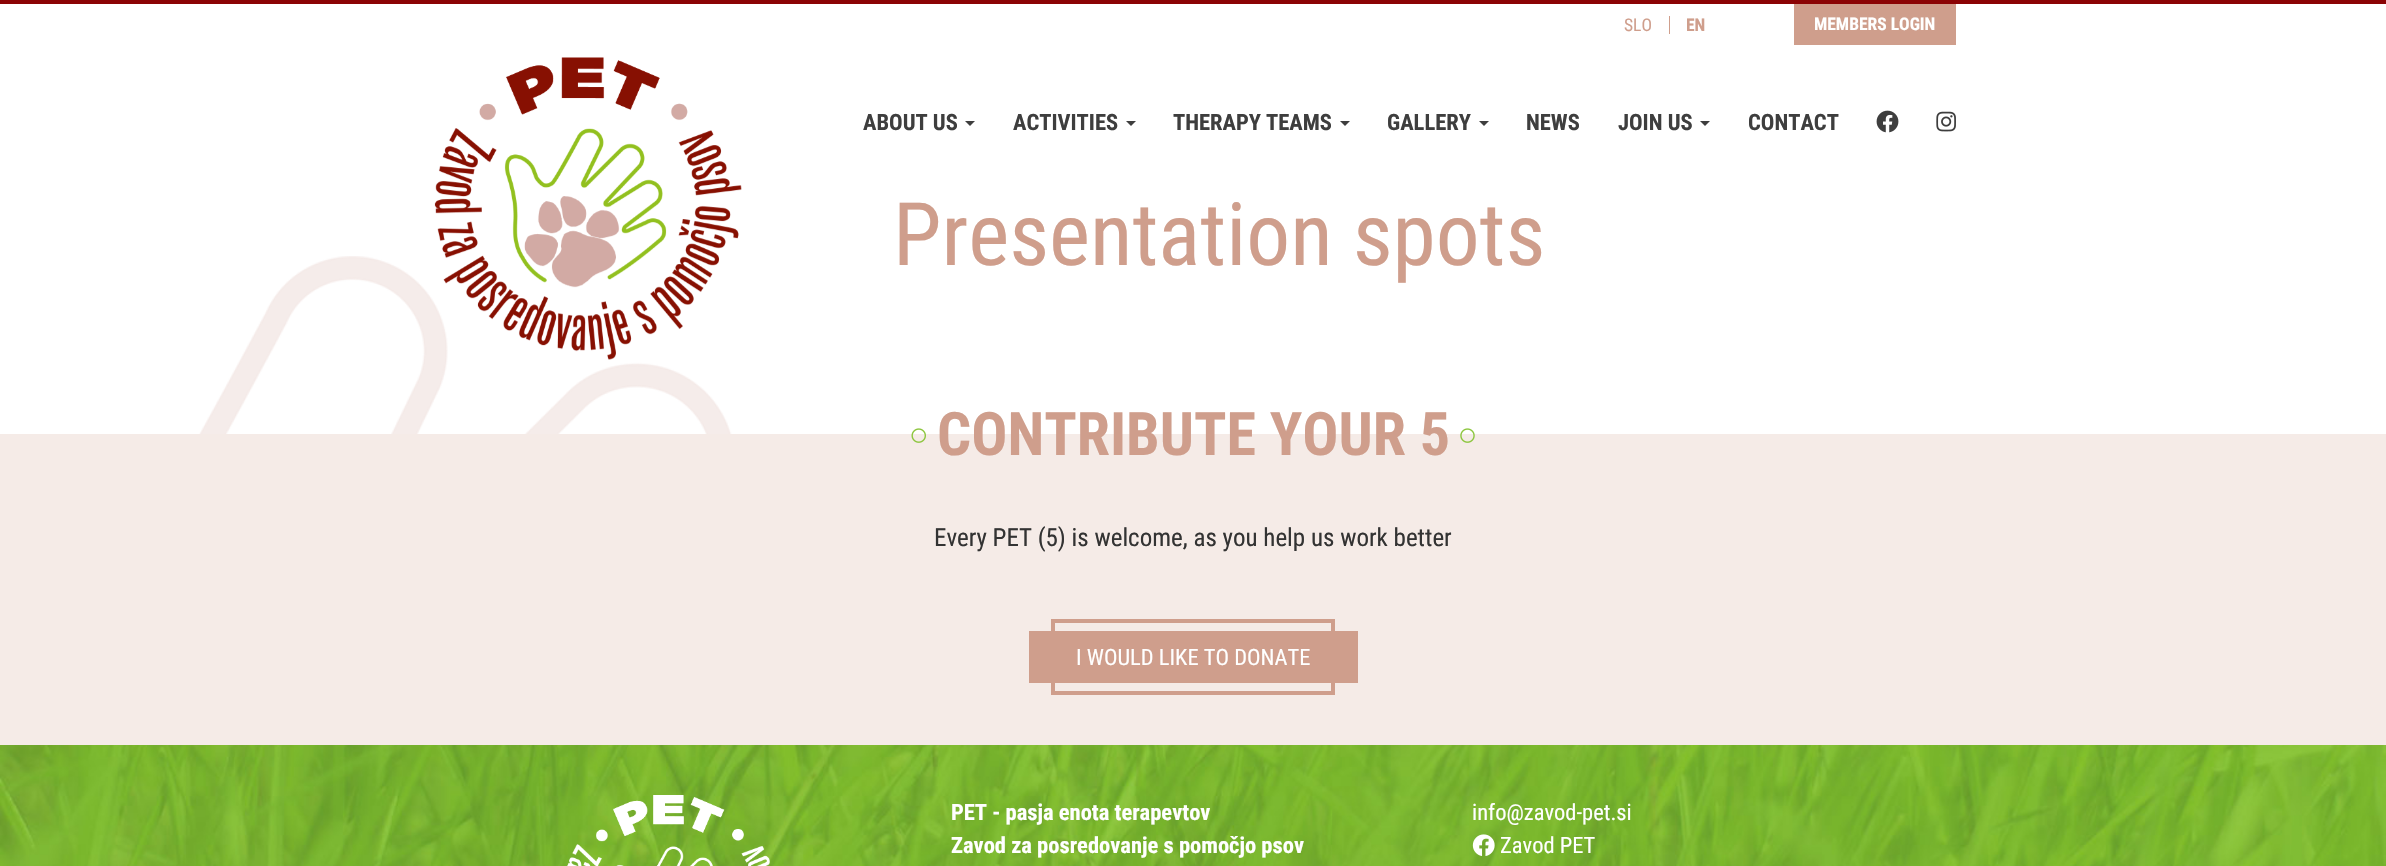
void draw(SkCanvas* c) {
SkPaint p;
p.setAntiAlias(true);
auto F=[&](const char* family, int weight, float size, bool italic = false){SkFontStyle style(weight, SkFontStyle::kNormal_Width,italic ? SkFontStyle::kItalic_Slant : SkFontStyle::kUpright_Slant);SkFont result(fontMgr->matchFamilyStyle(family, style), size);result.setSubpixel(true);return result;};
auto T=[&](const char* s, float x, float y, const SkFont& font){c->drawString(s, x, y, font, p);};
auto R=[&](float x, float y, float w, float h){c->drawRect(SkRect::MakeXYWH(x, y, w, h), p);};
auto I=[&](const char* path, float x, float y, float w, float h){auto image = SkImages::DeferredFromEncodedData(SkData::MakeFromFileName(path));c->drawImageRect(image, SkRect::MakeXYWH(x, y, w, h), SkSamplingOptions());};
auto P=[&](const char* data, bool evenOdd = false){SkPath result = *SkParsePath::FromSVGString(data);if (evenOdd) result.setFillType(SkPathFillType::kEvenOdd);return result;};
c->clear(0xffffffff);
I("1.png",199,256,533,178);
p.setColor(0xff8b0304);
R(0,0,2386,4);
p.setColor(0xffcf9e8c);
R(1669,16,1,18);
auto f1 = F("Roboto Condensed",400,17.5);
T("SLO",1624,31,f1);
auto f2 = F("Roboto Condensed",700,17.5);
T("EN",1686,31,f2);
R(1794,4,162,41);
p.setColor(0xffffffff);
T("MEMBERS LOGIN",1814,30,f2);
I("2.png",434,57,308,303);
auto f3 = F("Roboto Condensed",700,22.5);
p.setColor(0xff3e3e3e);
T("ABOUT US",863,130,f3);
c->drawPath(P("M965 121h10l-5 5z"),p);
T("ACTIVITIES",1013,130,f3);
c->drawPath(P("M1126 121h10l-5 5z"),p);
T("THERAPY TEAMS",1173,130,f3);
c->drawPath(P("M1340 121h10l-5 5z"),p);
T("GALLERY",1387,130,f3);
c->drawPath(P("M1479 121h10l-5 5z"),p);
T("NEWS",1526,130,f3);
T("JOIN US",1618,130,f3);
c->drawPath(P("M1700 121h10l-5 5z"),p);
T("CONTACT",1748,130,f3);
I("3.png",1876,110,23,23);
I("4.png",1936,111,20,21);
auto f4 = F("Roboto Condensed",400,87.5);
p.setColor(0xffcf9e8c);
T("Presentation spots",893,265,f4);
p.setColor(0xfff5ebe7);
R(0,434,2386,311);
I("5.png",911,428,15,15);
auto f5 = F("Roboto Condensed",700,60);
p.setColor(0xffcf9e8c);
T("CONTRIBUTE YOUR 5",937,455,f5);
I("6.png",1460,428,15,15);
auto f6 = F("Roboto Condensed",400,25);
p.setColor(0xff333333);
T("Every PET (5) is welcome, as you help us work better",934,546,f6);
p.setColor(0xffcf9e8c);
R(1029,631,329,52);
p.setStroke(true);
p.setStrokeWidth(4);
c->drawRect(SkRect::MakeXYWH(1053,621,280,72),p);
auto f7 = F("Roboto Condensed",400,22.5);
p.setStroke(false);
p.setColor(0xffffffff);
T("I WOULD LIKE TO DONATE",1076,665,f7);
I("7.png",0,745,2386,121);
I("8.png",567,795,203,71);
T("PET - pasja enota terapevtov",951,820,f3);
T("Zavod za posredovanje s pomočjo psov",951,853,f3);
T("info@zavod-pet.si",1472,820,f7);
I("9.png",1472,834,23,22);
T("Zavod PET",1500,853,f7);
}
